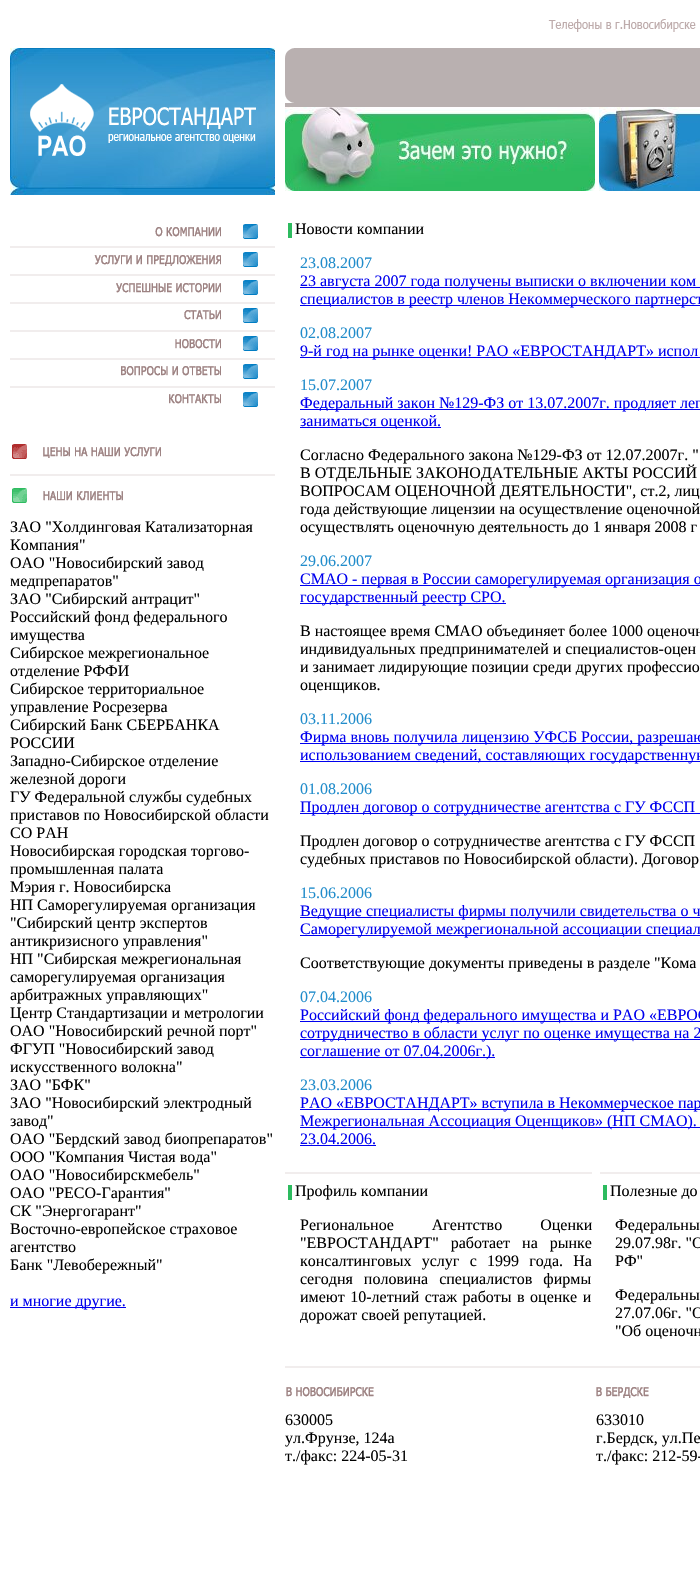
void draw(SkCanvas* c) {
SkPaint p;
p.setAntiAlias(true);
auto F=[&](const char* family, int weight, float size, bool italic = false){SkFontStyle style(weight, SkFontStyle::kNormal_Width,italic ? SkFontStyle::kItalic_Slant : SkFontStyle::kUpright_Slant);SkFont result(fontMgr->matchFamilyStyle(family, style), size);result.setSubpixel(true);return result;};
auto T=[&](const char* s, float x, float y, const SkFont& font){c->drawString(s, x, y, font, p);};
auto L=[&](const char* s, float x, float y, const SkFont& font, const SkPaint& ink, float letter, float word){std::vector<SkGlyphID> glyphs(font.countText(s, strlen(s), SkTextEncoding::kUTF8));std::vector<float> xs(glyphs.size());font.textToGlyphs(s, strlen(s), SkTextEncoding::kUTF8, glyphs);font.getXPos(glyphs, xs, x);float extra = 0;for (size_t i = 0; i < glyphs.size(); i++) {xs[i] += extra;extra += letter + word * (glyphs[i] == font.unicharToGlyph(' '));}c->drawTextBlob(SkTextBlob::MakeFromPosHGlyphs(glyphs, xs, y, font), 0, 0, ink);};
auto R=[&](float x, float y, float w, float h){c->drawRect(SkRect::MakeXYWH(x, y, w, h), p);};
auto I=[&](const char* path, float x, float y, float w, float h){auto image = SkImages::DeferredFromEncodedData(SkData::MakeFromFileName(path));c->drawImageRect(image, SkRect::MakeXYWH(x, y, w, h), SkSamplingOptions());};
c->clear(0xffffffff);
I("1.png",548,19,148,13);
I("2.png",10,48,265,147);
I("3.png",30,84,226,72);
p.setColor(0xffb9b0b0);
R(285,48,415,59);
I("4.png",285,48,9,55);
I("5.png",285,107,310,84);
I("6.png",599,107,101,84);
I("7.png",155,227,66,10);
I("8.png",243,224,15,15);
p.setColor(0xfff1eded);
R(10,246,265,2);
I("9.png",94,255,127,11);
I("8.png",243,252,15,15);
R(10,274,265,2);
I("10.png",116,283,105,10);
I("8.png",243,280,15,15);
R(10,302,265,2);
I("11.png",184,310,37,10);
I("8.png",243,308,15,15);
R(10,330,265,2);
I("12.png",175,339,46,10);
I("8.png",243,336,15,15);
R(10,358,265,2);
I("13.png",121,366,100,10);
I("8.png",243,364,15,15);
R(10,386,265,2);
I("14.png",169,394,52,10);
I("8.png",243,392,15,15);
I("15.png",12,444,149,15);
R(10,474,265,2);
I("16.png",12,488,111,15);
auto f1 = F("Liberation Serif",400,16);
p.setColor(0xff000000);
T("ЗАО \"Холдинговая Катализаторная",10,532,f1);
T("Компания\"",10,550,f1);
T("ОАО \"Новосибирский завод",10,568,f1);
T("медпрепаратов\"",10,586,f1);
T("ЗАО \"Сибирский антрацит\"",10,604,f1);
T("Российский фонд федерального",10,622,f1);
T("имущества",10,640,f1);
T("Сибирское межрегиональное",10,658,f1);
T("отделение РФФИ",10,676,f1);
T("Сибирское территориальное",10,694,f1);
T("управление Росрезерва",10,712,f1);
T("Сибирский Банк СБЕРБАНКА",10,730,f1);
T("РОССИИ",10,748,f1);
T("Западно-Сибирское отделение",10,766,f1);
T("железной дороги",10,784,f1);
T("ГУ Федеральной службы судебных",10,802,f1);
T("приставов по Новосибирской области",10,820,f1);
T("СО РАН",10,838,f1);
T("Новосибирская городская торгово-",10,856,f1);
T("промышленная палата",10,874,f1);
T("Мэрия г. Новосибирска",10,892,f1);
T("НП Саморегулируемая организация",10,910,f1);
T("\"Сибирский центр экспертов",10,928,f1);
T("антикризисного управления\"",10,946,f1);
T("НП \"Сибирская межрегиональная",10,964,f1);
T("саморегулируемая организация",10,982,f1);
T("арбитражных управляющих\"",10,1000,f1);
T("Центр Стандартизации и метрологии",10,1018,f1);
T("ОАО \"Новосибирский речной порт\"",10,1036,f1);
T("ФГУП \"Новосибирский завод",10,1054,f1);
T("искусственного волокна\"",10,1072,f1);
T("ЗАО \"БФК\"",10,1090,f1);
T("ЗАО \"Новосибирский электродный",10,1108,f1);
T("завод\"",10,1126,f1);
T("ОАО \"Бердский завод биопрепаратов\"",10,1144,f1);
T("ООО \"Компания Чистая вода\"",10,1162,f1);
T("ОАО \"Новосибирскмебель\"",10,1180,f1);
T("ОАО \"РЕСО-Гарантия\"",10,1198,f1);
T("СК \"Энергогарант\"",10,1216,f1);
T("Восточно-европейское страховое",10,1234,f1);
T("агентство",10,1252,f1);
T("Банк \"Левобережный\"",10,1270,f1);
p.setColor(0xff0000ee);
R(10,1307,116,1);
T("и многие другие.",10,1306,f1);
p.setColor(0xff2dbb5f);
R(288,223,4,15);
p.setColor(0xff000000);
T("Новости компании",295,234,f1);
p.setColor(0xff208ccb);
T("23.08.2007",300,268,f1);
p.setColor(0xff0000ee);
R(300,287,400,1);
T("23 августа 2007 года получены выписки о включении ком",300,286,f1);
R(300,305,400,1);
T("специалистов в реестр членов Некоммерческого партнерст",300,304,f1);
p.setColor(0xff208ccb);
T("02.08.2007",300,338,f1);
p.setColor(0xff0000ee);
R(300,357,400,1);
T("9-й год на рынке оценки! РАО «ЕВРОСТАНДАРТ» испол",300,356,f1);
p.setColor(0xff208ccb);
T("15.07.2007",300,390,f1);
p.setColor(0xff0000ee);
R(300,409,400,1);
T("Федеральный закон №129-ФЗ от 13.07.2007г. продляет лег",300,408,f1);
R(300,427,141,1);
T("заниматься оценкой.",300,426,f1);
p.setColor(0xff000000);
T("Согласно Федерального закона №129-ФЗ от 12.07.2007г. \"",300,460,f1);
T("В ОТДЕЛЬНЫЕ ЗАКОНОДАТЕЛЬНЫЕ АКТЫ РОССИЙ",300,478,f1);
T("ВОПРОСАМ ОЦЕНОЧНОЙ ДЕЯТЕЛЬНОСТИ\", ст.2, лиц",300,496,f1);
T("года действующие лицензии на осуществление оценочной",300,514,f1);
T("осуществлять оценочную деятельность до 1 января 2008 г",300,532,f1);
p.setColor(0xff208ccb);
T("29.06.2007",300,566,f1);
p.setColor(0xff0000ee);
R(300,585,400,1);
T("СМАО - первая в России саморегулируемая организация о",300,584,f1);
R(300,603,206,1);
T("государственный реестр СРО.",300,602,f1);
p.setColor(0xff000000);
T("В настоящее время СМАО объединяет более 1000 оценочн",300,636,f1);
T("индивидуальных предпринимателей и специалистов-оцен",300,654,f1);
T("и занимает лидирующие позиции среди других профессио",300,672,f1);
T("оценщиков.",300,690,f1);
p.setColor(0xff208ccb);
T("03.11.2006",300,724,f1);
p.setColor(0xff0000ee);
R(300,743,400,1);
T("Фирма вновь получила лицензию УФСБ России, разрешаю",300,742,f1);
R(300,761,400,1);
T("использованием сведений, составляющих государственную",300,760,f1);
p.setColor(0xff208ccb);
T("01.08.2006",300,794,f1);
p.setColor(0xff0000ee);
R(300,813,400,1);
T("Продлен договор о сотрудничестве агентства с ГУ ФССП",300,812,f1);
p.setColor(0xff000000);
T("Продлен договор о сотрудничестве агентства с ГУ ФССП",300,846,f1);
T("судебных приставов по Новосибирской области). Договор",300,864,f1);
p.setColor(0xff208ccb);
T("15.06.2006",300,898,f1);
p.setColor(0xff0000ee);
R(300,917,400,1);
T("Ведущие специалисты фирмы получили свидетельства о ч",300,916,f1);
R(300,935,400,1);
T("Саморегулируемой межрегиональной ассоциации специал",300,934,f1);
p.setColor(0xff000000);
T("Соответствующие документы приведены в разделе \"Кома",300,968,f1);
p.setColor(0xff208ccb);
T("07.04.2006",300,1002,f1);
p.setColor(0xff0000ee);
R(300,1021,400,1);
T("Российский фонд федерального имущества и РАО «ЕВРОС",300,1020,f1);
R(300,1039,400,1);
T("сотрудничество в области услуг по оценке имущества на 2",300,1038,f1);
R(300,1057,195,1);
T("соглашение от 07.04.2006г.).",300,1056,f1);
p.setColor(0xff208ccb);
T("23.03.2006",300,1090,f1);
p.setColor(0xff0000ee);
R(300,1109,400,1);
T("РАО «ЕВРОСТАНДАРТ» вступила в Некоммерческое пар",300,1108,f1);
R(300,1127,400,1);
T("Межрегиональная Ассоциация Оценщиков» (НП СМАО).",300,1126,f1);
T("23.04.2006.",300,1144,f1);
R(300,1145,76,1);
p.setColor(0xfff1eded);
R(285,1172,307,2);
p.setColor(0xff2dbb5f);
R(288,1185,4,15);
p.setColor(0xff000000);
T("Профиль компании",295,1196,f1);
L("Региональное Агентство Оценки",300,1230,f1,p,0,34);
L("\"ЕВРОСТАНДАРТ\" работает на рынке",300,1248,f1,p,0,8);
L("консалтинговых услуг с 1999 года. На",300,1266,f1,p,0,6.25);
L("сегодня половина специалистов фирмы",300,1284,f1,p,0,7);
L("имеют 10-летний стаж работы в оценке и",300,1302,f1,p,0,1.5);
T("дорожат своей репутацией.",300,1320,f1);
p.setColor(0xfff1eded);
R(600,1172,100,2);
p.setColor(0xff2dbb5f);
R(603,1185,4,15);
p.setColor(0xff000000);
T("Полезные до",610,1196,f1);
T("Федеральны",615,1230,f1);
T("29.07.98г. \"О",615,1248,f1);
T("РФ\"",615,1266,f1);
T("Федеральны",615,1300,f1);
T("27.07.06г. \"О",615,1318,f1);
T("\"Об оценочн",615,1336,f1);
p.setColor(0xfff1eded);
R(285,1366,415,2);
I("17.png",286,1387,88,10);
p.setColor(0xff000000);
T("630005",285,1425,f1);
T("ул.Фрунзе, 124а",285,1443,f1);
T("т./факс: 224-05-31",285,1461,f1);
I("18.png",596,1387,53,11);
T("633010",596,1425,f1);
T("г.Бердск, ул.Пе",596,1443,f1);
T("т./факс: 212-59-",596,1461,f1);
}
